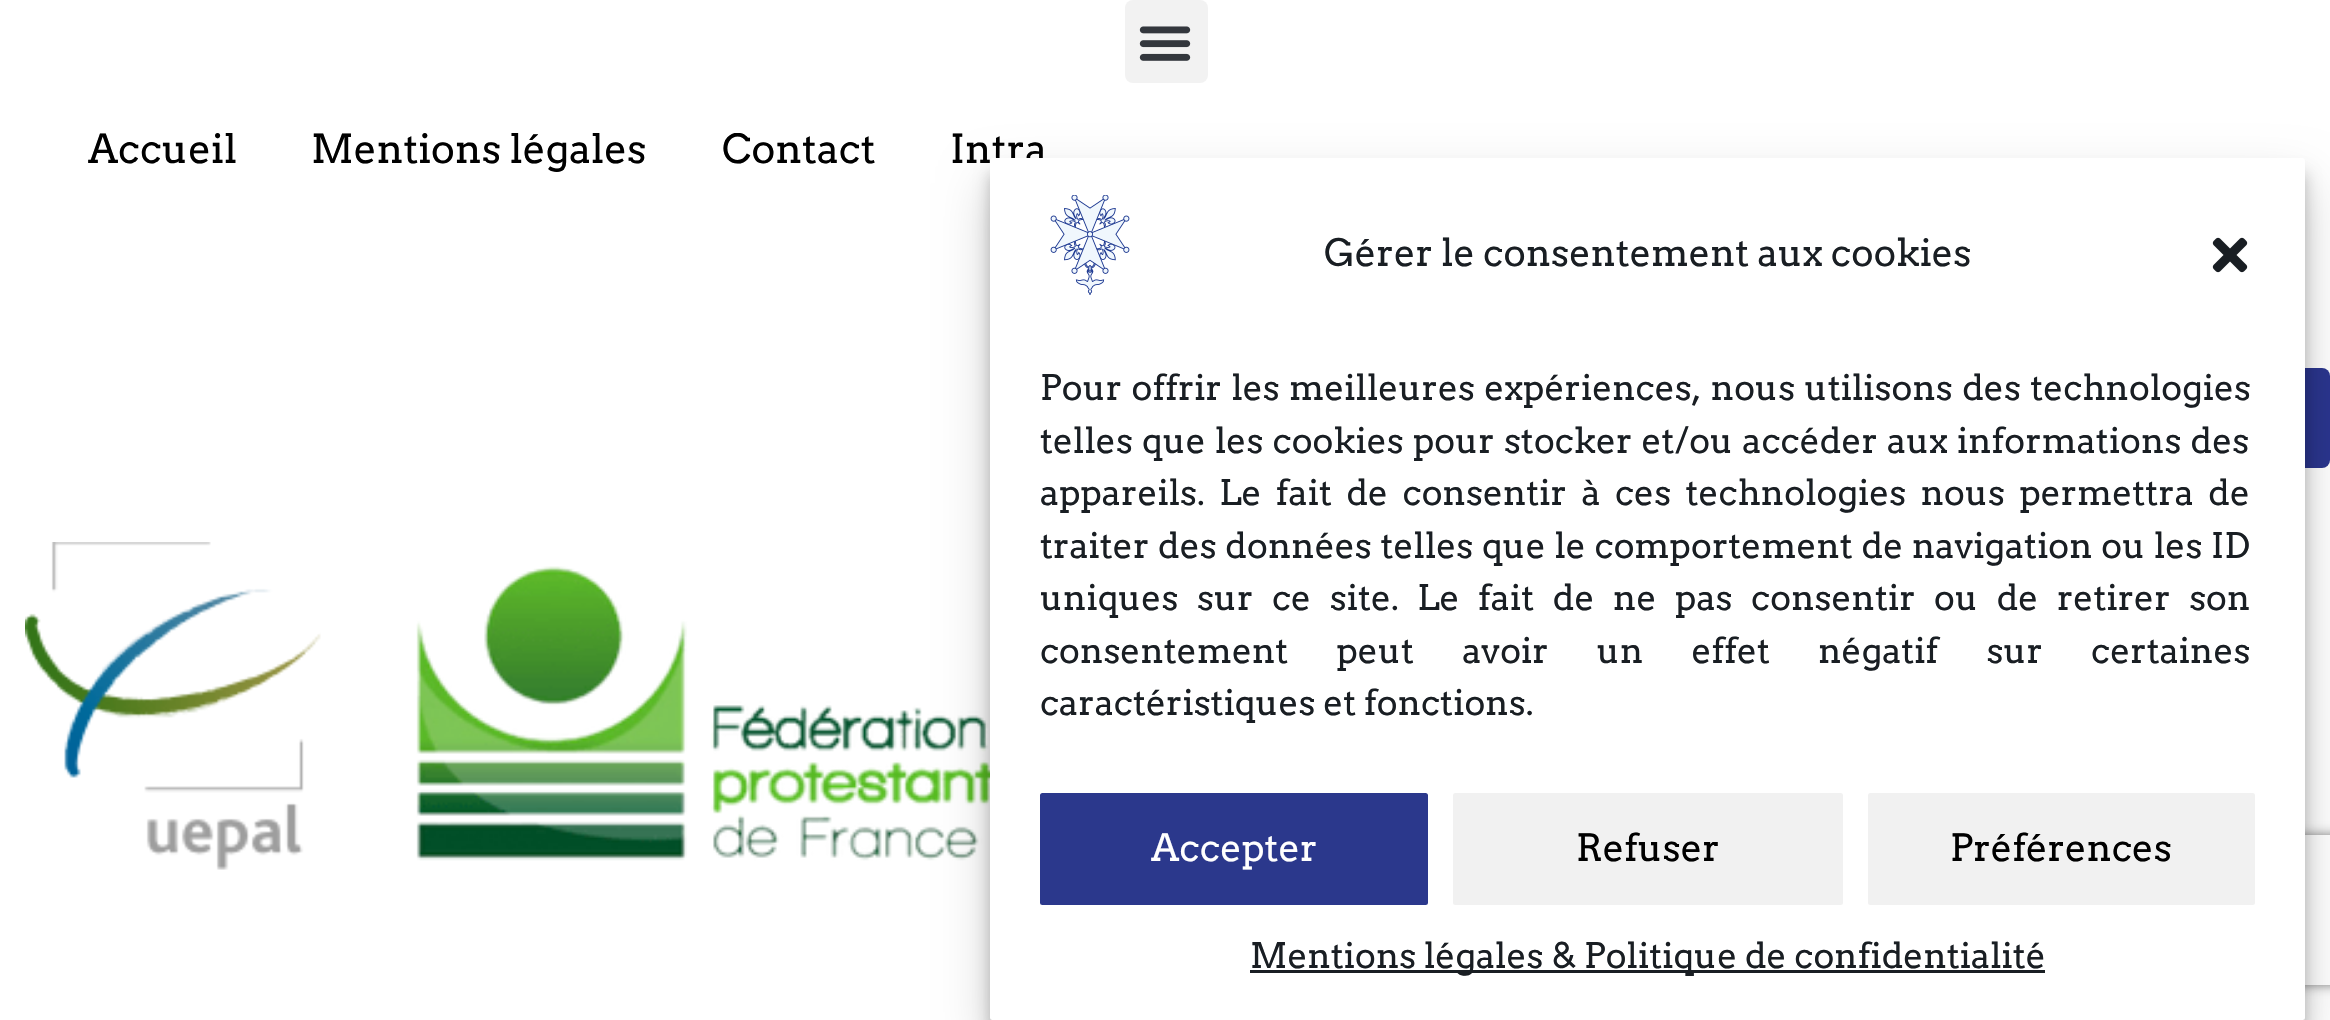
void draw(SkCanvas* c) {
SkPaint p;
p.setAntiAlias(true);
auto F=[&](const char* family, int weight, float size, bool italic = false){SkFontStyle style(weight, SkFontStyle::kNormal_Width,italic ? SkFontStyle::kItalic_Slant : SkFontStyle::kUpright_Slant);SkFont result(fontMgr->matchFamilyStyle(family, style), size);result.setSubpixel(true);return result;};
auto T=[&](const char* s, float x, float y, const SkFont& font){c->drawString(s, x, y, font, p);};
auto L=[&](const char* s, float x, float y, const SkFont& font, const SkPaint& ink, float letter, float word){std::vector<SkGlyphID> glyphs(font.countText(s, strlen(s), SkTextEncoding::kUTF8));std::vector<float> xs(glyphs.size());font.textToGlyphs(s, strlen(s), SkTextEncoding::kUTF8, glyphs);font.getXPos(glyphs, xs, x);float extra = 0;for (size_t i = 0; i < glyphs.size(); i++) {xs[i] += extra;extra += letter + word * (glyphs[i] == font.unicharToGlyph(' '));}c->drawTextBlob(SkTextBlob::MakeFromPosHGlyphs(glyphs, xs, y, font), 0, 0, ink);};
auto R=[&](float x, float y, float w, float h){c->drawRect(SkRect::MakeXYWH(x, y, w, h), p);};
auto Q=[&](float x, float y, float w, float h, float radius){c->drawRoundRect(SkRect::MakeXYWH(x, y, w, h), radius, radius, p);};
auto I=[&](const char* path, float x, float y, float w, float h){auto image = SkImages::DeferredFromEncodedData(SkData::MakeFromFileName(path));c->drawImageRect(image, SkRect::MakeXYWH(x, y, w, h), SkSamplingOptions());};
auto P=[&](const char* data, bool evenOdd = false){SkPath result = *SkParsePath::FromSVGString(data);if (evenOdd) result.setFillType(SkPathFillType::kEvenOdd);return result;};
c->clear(0xffffffff);
auto f1 = F("Arvo",400,40);
p.setColor(0xff000000);
T("Accueil",88,163,f1);
T("Mentions légales",311,163,f1);
T("Contact",722,163,f1);
p.setColor(0xffffffff);
R(225,132,515,1);
p.setColor(0xfff2f2f2);
Q(1125,0,83,83,8);
I("1.png",1139,26,52,35);
p.setColor(0xff000000);
T("Intra",950,163,f1);
p.setColor(0xff2a358e);
Q(1215,368,1115,100,8);
c->save();
c->clipPath(P("M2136 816h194v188h-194zm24 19h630c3 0 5 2 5 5v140c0 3-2 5-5 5h-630c-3 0-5-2-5-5v-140c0-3 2-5 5-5z",true),true);
p.setColor(0xff808080);
p.setMaskFilter(SkMaskFilter::MakeBlur(kNormal_SkBlurStyle, 6));
c->drawRoundRect(SkRect::MakeXYWH(2155,835,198,150),5,5,p);
p.setMaskFilter(nullptr);
c->restore();
I("2.png",25,542,296,328);
I("3.png",416,566,574,295);
p.setColor(0x3b000000);
p.setMaskFilter(SkMaskFilter::MakeBlur(kNormal_SkBlurStyle, 7.5));
c->drawRoundRect(SkRect::MakeXYWH(990,173,1315,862),2.5,2.5,p);
p.setMaskFilter(nullptr);
p.setColor(0x30000000);
p.setMaskFilter(SkMaskFilter::MakeBlur(kNormal_SkBlurStyle, 25));
c->drawRoundRect(SkRect::MakeXYWH(990,183,1315,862),2.5,2.5,p);
p.setMaskFilter(nullptr);
p.setColor(0xffffffff);
Q(990,158,1315,862,2.5);
I("4.png",1050,195,80,100);
auto f2 = F("Arvo",400,37.5);
p.setColor(0xff191e23);
T("Gérer le consentement aux cookies",1324,266,f2);
I("5.png",2212,237,36,36);
auto f3 = F("Arvo",400,35);
L("Pour offrir les meilleures expériences, nous utilisons des technologies",1040,400,f3,p,0,1.75);
L("telles que les cookies pour stocker et/ou accéder aux informations des",1040,453,f3,p,0,1.5);
L("appareils. Le fait de consentir à ces technologies nous permettra de",1040,505,f3,p,0,6.75);
L("traiter des données telles que le comportement de navigation ou les ID",1040,558,f3,p,0,1);
L("uniques sur ce site. Le fait de ne pas consentir ou de retirer son",1040,610,f3,p,0,10.9);
L("consentement peut avoir un effet négatif sur certaines",1040,663,f3,p,0,40.5);
T("caractéristiques et fonctions.",1040,715,f3);
p.setColor(0xff2b388c);
c->drawRoundRect(SkRect::MakeXYWH(1041.5,794.5,385,109),1,1,p);
p.setStroke(true);
p.setStrokeWidth(3);
c->drawRoundRect(SkRect::MakeXYWH(1041.5,794.5,385,109),1,1,p);
p.setStroke(false);
p.setColor(0xffffffff);
T("Accepter",1151,861,f2);
p.setColor(0xfff1f1f1);
c->drawRoundRect(SkRect::MakeXYWH(1454.5,794.5,387,109),1,1,p);
p.setStroke(true);
c->drawRoundRect(SkRect::MakeXYWH(1454.5,794.5,387,109),1,1,p);
p.setStroke(false);
p.setColor(0xff000000);
T("Refuser",1576,861,f2);
p.setColor(0xfff1f1f1);
c->drawRoundRect(SkRect::MakeXYWH(1869.5,794.5,384,109),1,1,p);
p.setStroke(true);
c->drawRoundRect(SkRect::MakeXYWH(1869.5,794.5,384,109),1,1,p);
p.setStroke(false);
p.setColor(0xff000000);
T("Préférences",1950,861,f2);
p.setColor(0xff191e23);
R(1250,970,795,3);
T("Mentions légales & Politique de confidentialité",1250,968,f3);
}
